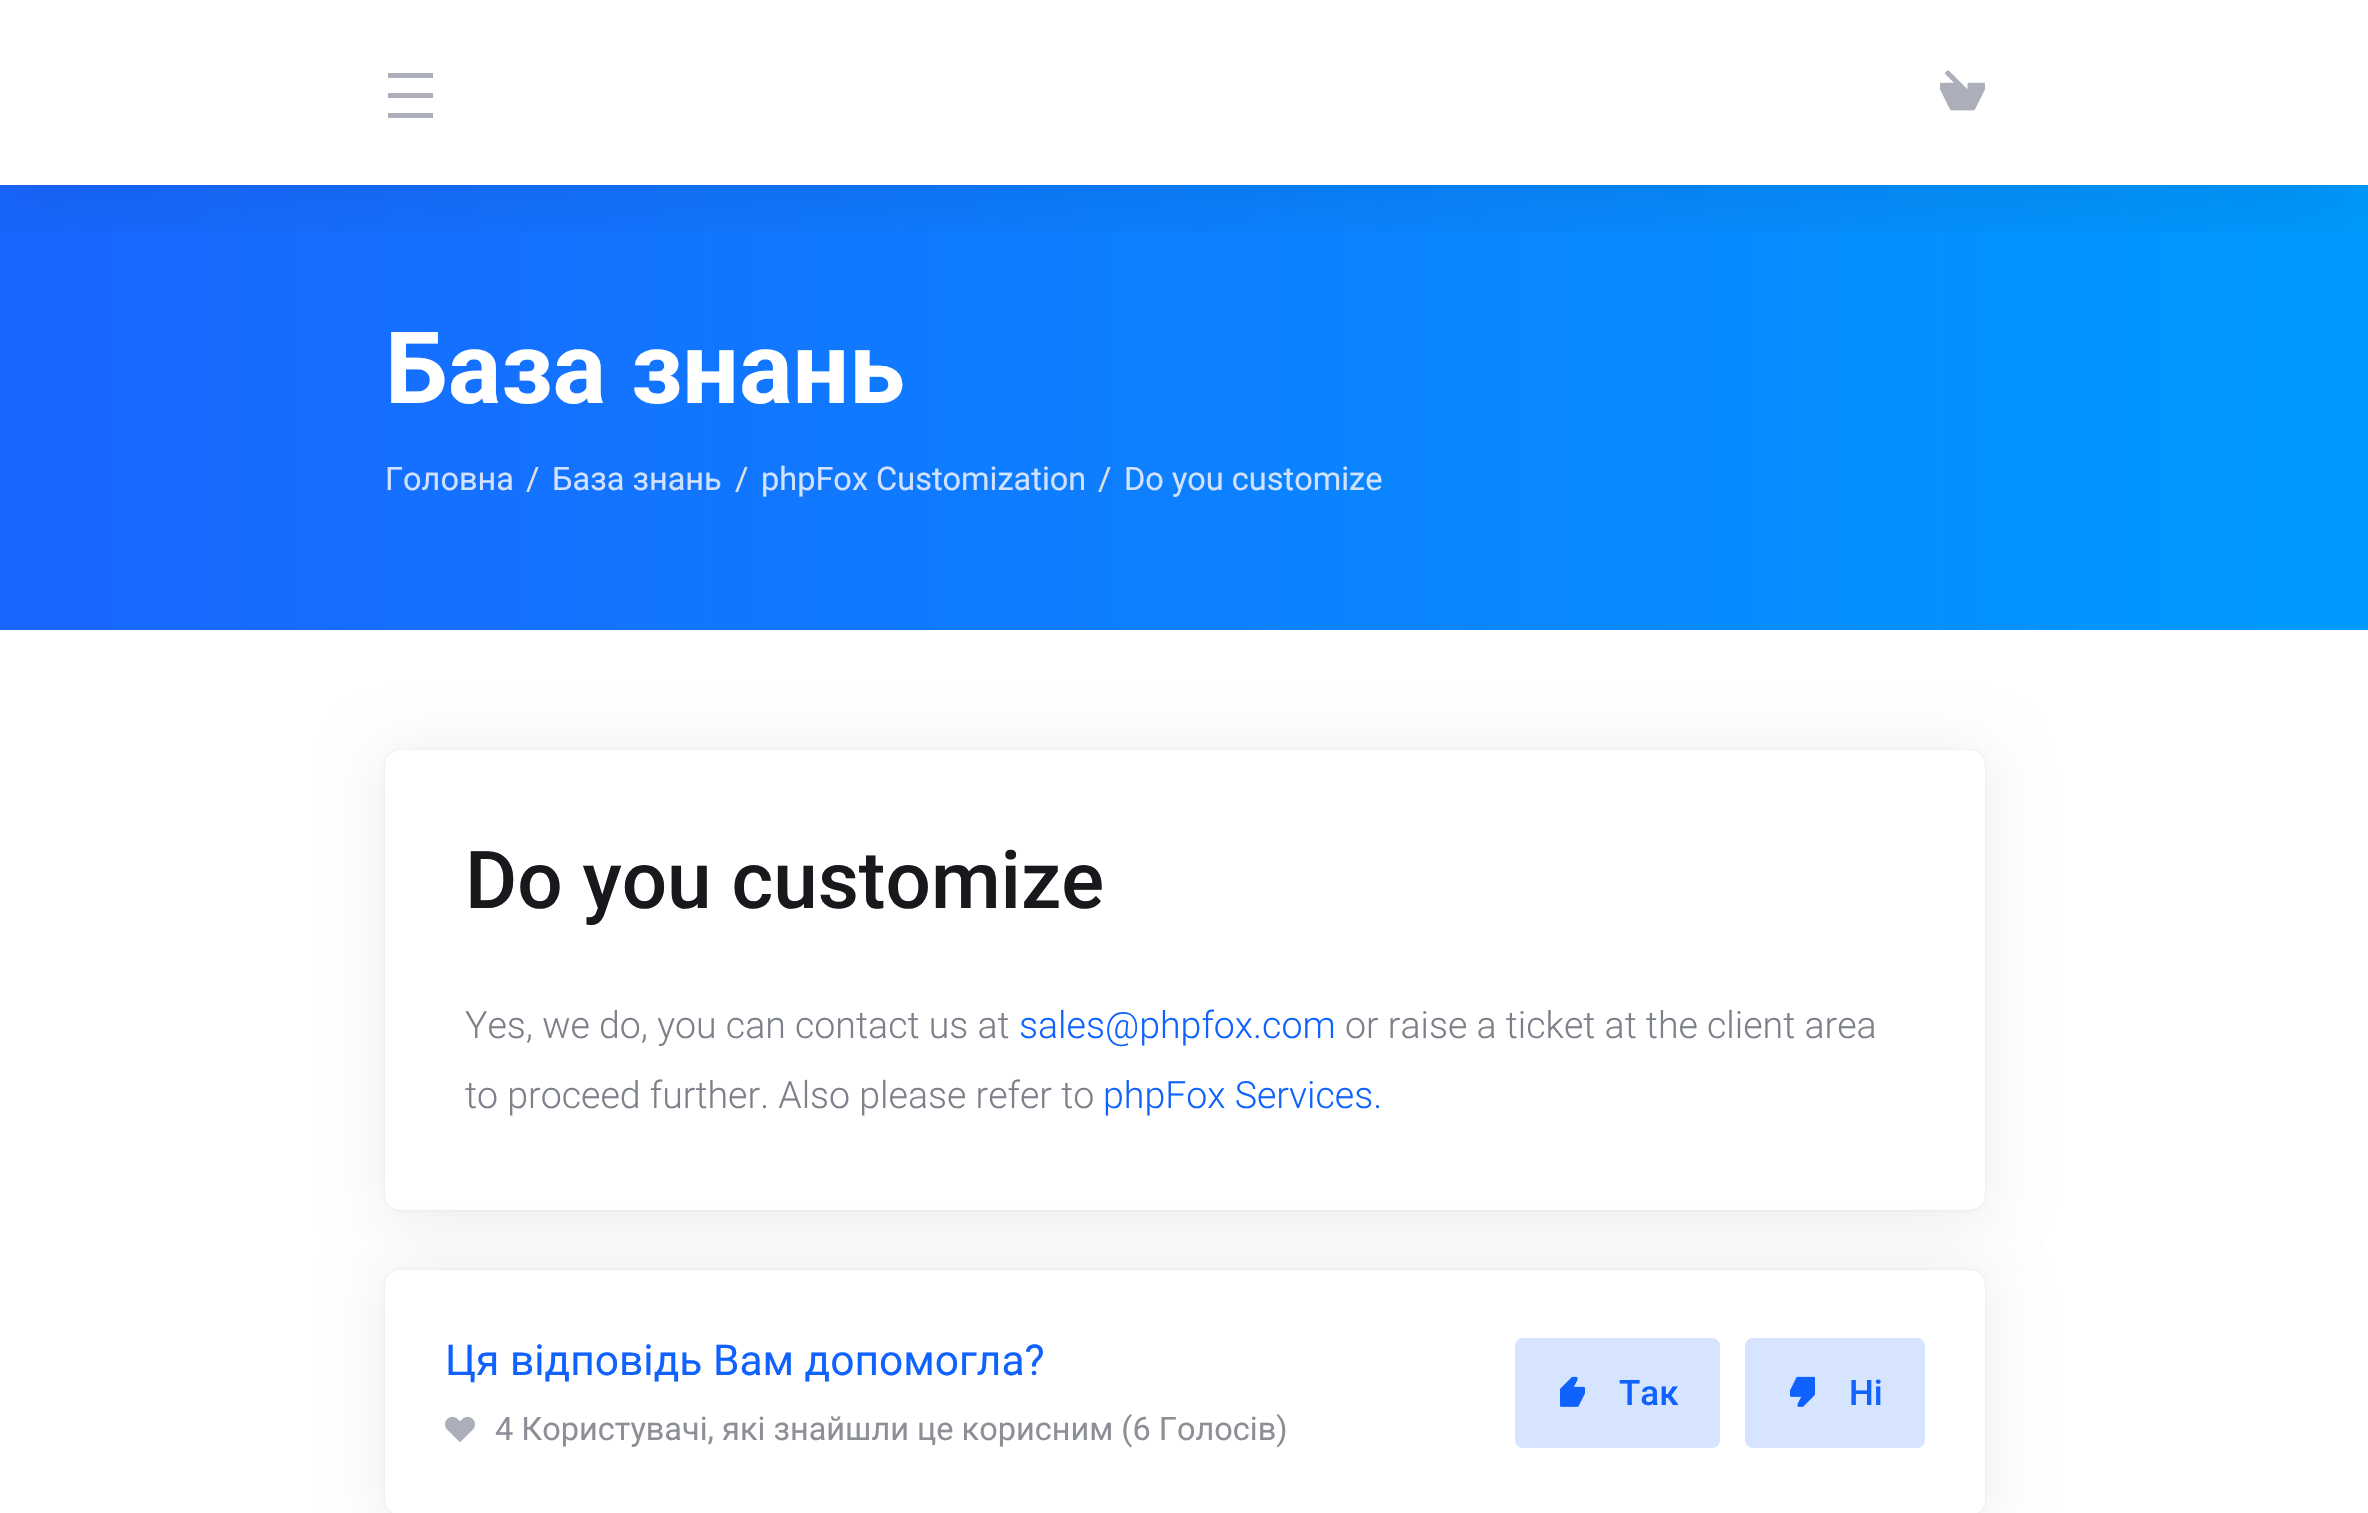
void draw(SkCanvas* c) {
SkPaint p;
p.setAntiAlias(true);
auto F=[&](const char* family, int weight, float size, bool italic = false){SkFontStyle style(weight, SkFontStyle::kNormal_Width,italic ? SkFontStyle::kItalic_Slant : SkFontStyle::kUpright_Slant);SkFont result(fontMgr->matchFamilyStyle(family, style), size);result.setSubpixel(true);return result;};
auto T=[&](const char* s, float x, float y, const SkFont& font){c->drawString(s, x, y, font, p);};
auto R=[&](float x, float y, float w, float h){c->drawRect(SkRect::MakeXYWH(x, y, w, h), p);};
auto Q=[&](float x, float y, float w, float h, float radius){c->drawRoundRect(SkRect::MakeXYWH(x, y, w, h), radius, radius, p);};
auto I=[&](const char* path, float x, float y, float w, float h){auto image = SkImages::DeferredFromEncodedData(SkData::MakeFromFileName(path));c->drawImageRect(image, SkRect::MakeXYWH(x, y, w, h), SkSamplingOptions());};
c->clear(0xffffffff);
{
const SkColor colors[] = {0xff1966ff,0xff009aff};
const float stops[] = {0,1};
const SkPoint ends[] = {{0,408}, {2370,407}};
p.setShader(SkGradientShader::MakeLinear(ends, colors, stops, 2, SkTileMode::kClamp));
p.setAlpha(255);
}
R(0,185,2368,445);
c->save();
c->clipRect(SkRect::MakeXYWH(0,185,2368,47));
p.setShader(nullptr);
p.setColor(0x14000000);
p.setMaskFilter(SkMaskFilter::MakeBlur(kNormal_SkBlurStyle, 40));
c->drawRect(SkRect::MakeXYWH(0,20,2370,185),p);
p.setMaskFilter(nullptr);
c->restore();
p.setColor(0xffacafb9);
R(388,73,45,5);
R(388,93,45,5);
R(388,113,45,5);
I("1.png",1940,70,45,41);
auto f1 = F("Roboto",700,100);
p.setColor(0xffffffff);
T("База знань",385,403,f1);
auto f2 = F("Roboto",400,32.5);
p.setColor(0xffd0e2ff);
T("Головна",385,490,f2);
p.setColor(0xffdee0e3);
T("/",526,490,f2);
p.setColor(0xffd0e2ff);
T("База знань",552,490,f2);
p.setColor(0xffdee0e3);
T("/",735,490,f2);
p.setColor(0xffd0e2ff);
T("phpFox Customization",761,490,f2);
p.setColor(0xffdee0e3);
T("/",1098,490,f2);
p.setColor(0xffd0e2ff);
T("Do you customize",1124,490,f2);
p.setColor(0x14000000);
p.setMaskFilter(SkMaskFilter::MakeBlur(kNormal_SkBlurStyle, 30));
c->drawRoundRect(SkRect::MakeXYWH(385,755,1600,460),15,15,p);
p.setMaskFilter(nullptr);
p.setColor(0x1a000000);
p.setMaskFilter(SkMaskFilter::MakeBlur(kNormal_SkBlurStyle, 1));
c->drawRoundRect(SkRect::MakeXYWH(385,750,1600,460),15,15,p);
p.setMaskFilter(nullptr);
p.setColor(0xffffffff);
Q(385,750,1600,460,15);
auto f3 = F("Roboto",500,80);
p.setColor(0xff17191c);
T("Do you customize",465,908,f3);
auto f4 = F("Roboto",300,37.5);
p.setColor(0xff7c8088);
T("Yes, we do, you can contact us at",465,1038,f4);
p.setColor(0xff1062fe);
T("sales@phpfox.com",1019,1038,f4);
p.setColor(0xff7c8088);
T("or raise a ticket at the client area",1345,1038,f4);
T("to proceed further. Also please refer to",465,1108,f4);
p.setColor(0xff1062fe);
T("phpFox Services.",1103,1108,f4);
p.setColor(0x14000000);
p.setMaskFilter(SkMaskFilter::MakeBlur(kNormal_SkBlurStyle, 30));
c->drawRoundRect(SkRect::MakeXYWH(385,1275,1600,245),15,15,p);
p.setMaskFilter(nullptr);
p.setColor(0x1a000000);
p.setMaskFilter(SkMaskFilter::MakeBlur(kNormal_SkBlurStyle, 1));
c->drawRoundRect(SkRect::MakeXYWH(385,1270,1600,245),15,15,p);
p.setMaskFilter(nullptr);
p.setColor(0xffffffff);
Q(385,1270,1600,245,15);
auto f5 = F("Roboto",400,42.5);
p.setColor(0xff1062fe);
T("Ця відповідь Вам допомогла?",445,1375,f5);
I("2.png",445,1416,30,26);
p.setColor(0xff8c8f96);
T("4 Користувачі, які знайшли це корисним (6 Голосів)",495,1440,f2);
p.setColor(0xffd6e4ff);
c->drawRoundRect(SkRect::MakeXYWH(1516.5,1339.5,202,107),6.5,6.5,p);
p.setStroke(true);
p.setStrokeWidth(3);
c->drawRoundRect(SkRect::MakeXYWH(1516.5,1339.5,202,107),6.5,6.5,p);
I("3.png",1560,1376,25,31);
auto f6 = F("Roboto",500,35);
p.setStroke(false);
p.setColor(0xff1062fe);
T("Так",1619,1405,f6);
p.setColor(0xffd6e4ff);
c->drawRoundRect(SkRect::MakeXYWH(1746.5,1339.5,177,107),6.5,6.5,p);
p.setStroke(true);
c->drawRoundRect(SkRect::MakeXYWH(1746.5,1339.5,177,107),6.5,6.5,p);
I("4.png",1790,1376,25,31);
p.setStroke(false);
p.setColor(0xff1062fe);
T("Ні",1849,1405,f6);
}
